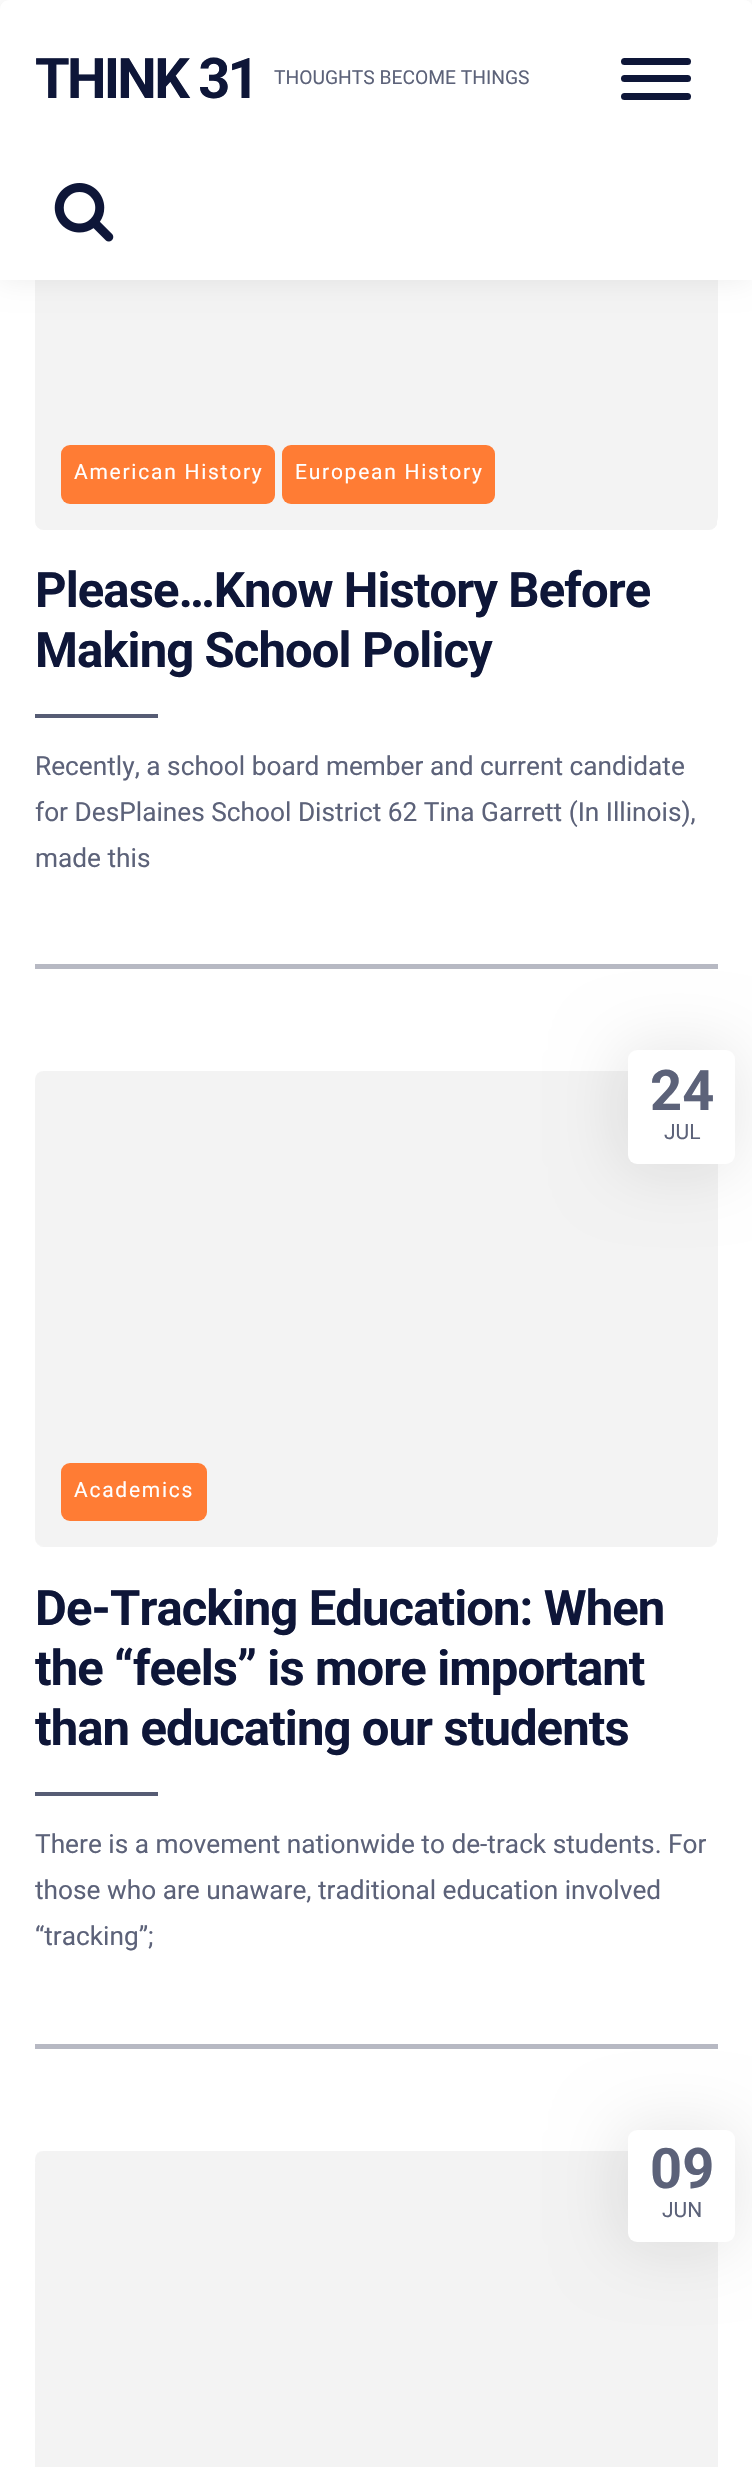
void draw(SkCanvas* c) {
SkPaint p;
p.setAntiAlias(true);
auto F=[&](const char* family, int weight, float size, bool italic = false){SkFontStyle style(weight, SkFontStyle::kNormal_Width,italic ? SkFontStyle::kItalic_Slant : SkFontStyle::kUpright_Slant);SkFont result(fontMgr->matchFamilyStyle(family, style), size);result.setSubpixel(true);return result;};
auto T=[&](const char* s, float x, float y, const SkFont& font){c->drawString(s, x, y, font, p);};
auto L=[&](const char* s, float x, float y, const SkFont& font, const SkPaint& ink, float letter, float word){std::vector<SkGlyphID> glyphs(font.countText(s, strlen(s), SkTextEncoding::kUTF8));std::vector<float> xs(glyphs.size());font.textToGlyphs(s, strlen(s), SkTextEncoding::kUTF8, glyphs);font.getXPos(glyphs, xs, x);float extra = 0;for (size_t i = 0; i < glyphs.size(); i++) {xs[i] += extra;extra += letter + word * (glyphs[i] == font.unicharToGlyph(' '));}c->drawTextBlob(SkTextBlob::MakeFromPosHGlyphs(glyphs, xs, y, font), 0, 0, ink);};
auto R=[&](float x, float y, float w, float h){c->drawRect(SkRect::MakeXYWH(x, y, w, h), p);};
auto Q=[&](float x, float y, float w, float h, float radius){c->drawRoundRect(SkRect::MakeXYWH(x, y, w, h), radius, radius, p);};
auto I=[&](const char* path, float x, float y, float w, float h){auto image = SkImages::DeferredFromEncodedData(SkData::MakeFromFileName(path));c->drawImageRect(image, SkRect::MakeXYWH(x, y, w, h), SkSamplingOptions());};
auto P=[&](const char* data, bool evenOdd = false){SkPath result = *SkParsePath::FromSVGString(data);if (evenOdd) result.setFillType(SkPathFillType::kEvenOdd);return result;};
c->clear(0xffffffff);
p.setColor(0xfff3f3f3);
Q(35,54,683,476,14);
I("2.png",35,280,682,250);
p.setColor(0x12000000);
p.setMaskFilter(SkMaskFilter::MakeBlur(kNormal_SkBlurStyle, 14));
c->drawRoundRect(SkRect::MakeXYWH(-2,0,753,280),9,9,p);
p.setMaskFilter(nullptr);
p.setColor(0xffffffff);
c->drawPath(P("M9 0h735c5 0 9 4 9 9v271h-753v-271c0-5 4-9 9-9z"),p);
auto f1 = F("Roboto",700,56);
p.setColor(0xff0e1638);
L("THINK 31",35,98,f1,p,-2.75,0);
auto f2 = F("Roboto",400,19.25);
p.setColor(0xff5c6279);
T("THOUGHTS BECOME THINGS",274,84,f2);
p.setColor(0xff0e1638);
Q(621,58,70,7,3.5);
Q(621,75,70,7,3.5);
Q(621,93,70,7,3.5);
I("1.png",54,183,60,59);
p.setColor(0xffff7c34);
Q(61,445,214,59,9);
auto f3 = F("Roboto",400,21);
p.setColor(0xffffffff);
L("American History",74,479,f3,p,1.75,0);
p.setColor(0xffff7c34);
Q(282,445,213,59,9);
p.setColor(0xffffffff);
L("European History",295,479,f3,p,1.75,0);
auto f4 = F("Roboto",700,49);
p.setColor(0xff0e1638);
L("Please…Know History Before",35,607,f4,p,-.9,0);
L("Making School Policy",35,667,f4,p,-.9,0);
p.setColor(0xff565c74);
R(35,714,123,4);
auto f5 = F("Roboto",400,26.25);
p.setColor(0xff5c6279);
T("Recently, a school board member and current candidate",35,775,f5);
T("for DesPlaines School District 62 Tina Garrett (In Illinois),",35,821,f5);
T("made this",35,867,f5);
p.setColor(0xffb7b9c3);
R(35,964,683,5);
p.setColor(0xfff3f3f3);
Q(35,1071,683,476,14);
I("3.png",35,1071,682,476);
p.setColor(0x1a000000);
p.setMaskFilter(SkMaskFilter::MakeBlur(kNormal_SkBlurStyle, 33));
c->drawRoundRect(SkRect::MakeXYWH(621,1048,114,121),12,12,p);
p.setMaskFilter(nullptr);
p.setColor(0xffffffff);
Q(628,1050,107,114,9);
p.setColor(0xff5c6279);
T("24",650,1110,f1);
T("JUL",664,1139,f3);
p.setColor(0xffff7c34);
Q(61,1463,146,58,9);
p.setColor(0xffffffff);
L("Academics",74,1497,f3,p,1.75,0);
p.setColor(0xff0e1638);
L("De-Tracking Education: When",35,1625,f4,p,-.9,0);
L("the “feels” is more important",35,1685,f4,p,-.9,0);
L("than educating our students",35,1745,f4,p,-.9,0);
p.setColor(0xff565c74);
R(35,1792,123,4);
p.setColor(0xff5c6279);
T("There is a movement nationwide to de-track students. For",35,1853,f5);
T("those who are unaware, traditional education involved",35,1899,f5);
T("“tracking”;",35,1945,f5);
p.setColor(0xffb7b9c3);
R(35,2044,683,5);
p.setColor(0xfff3f3f3);
Q(35,2151,683,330,14);
I("4.png",35,2151,593,11);
p.setColor(0x1a000000);
p.setMaskFilter(SkMaskFilter::MakeBlur(kNormal_SkBlurStyle, 33));
c->drawRoundRect(SkRect::MakeXYWH(621,2128,114,119),12,12,p);
p.setMaskFilter(nullptr);
p.setColor(0xffffffff);
Q(628,2130,107,112,9);
p.setColor(0xff5c6279);
T("09",650,2188,f1);
T("JUN",662,2217,f3);
}
